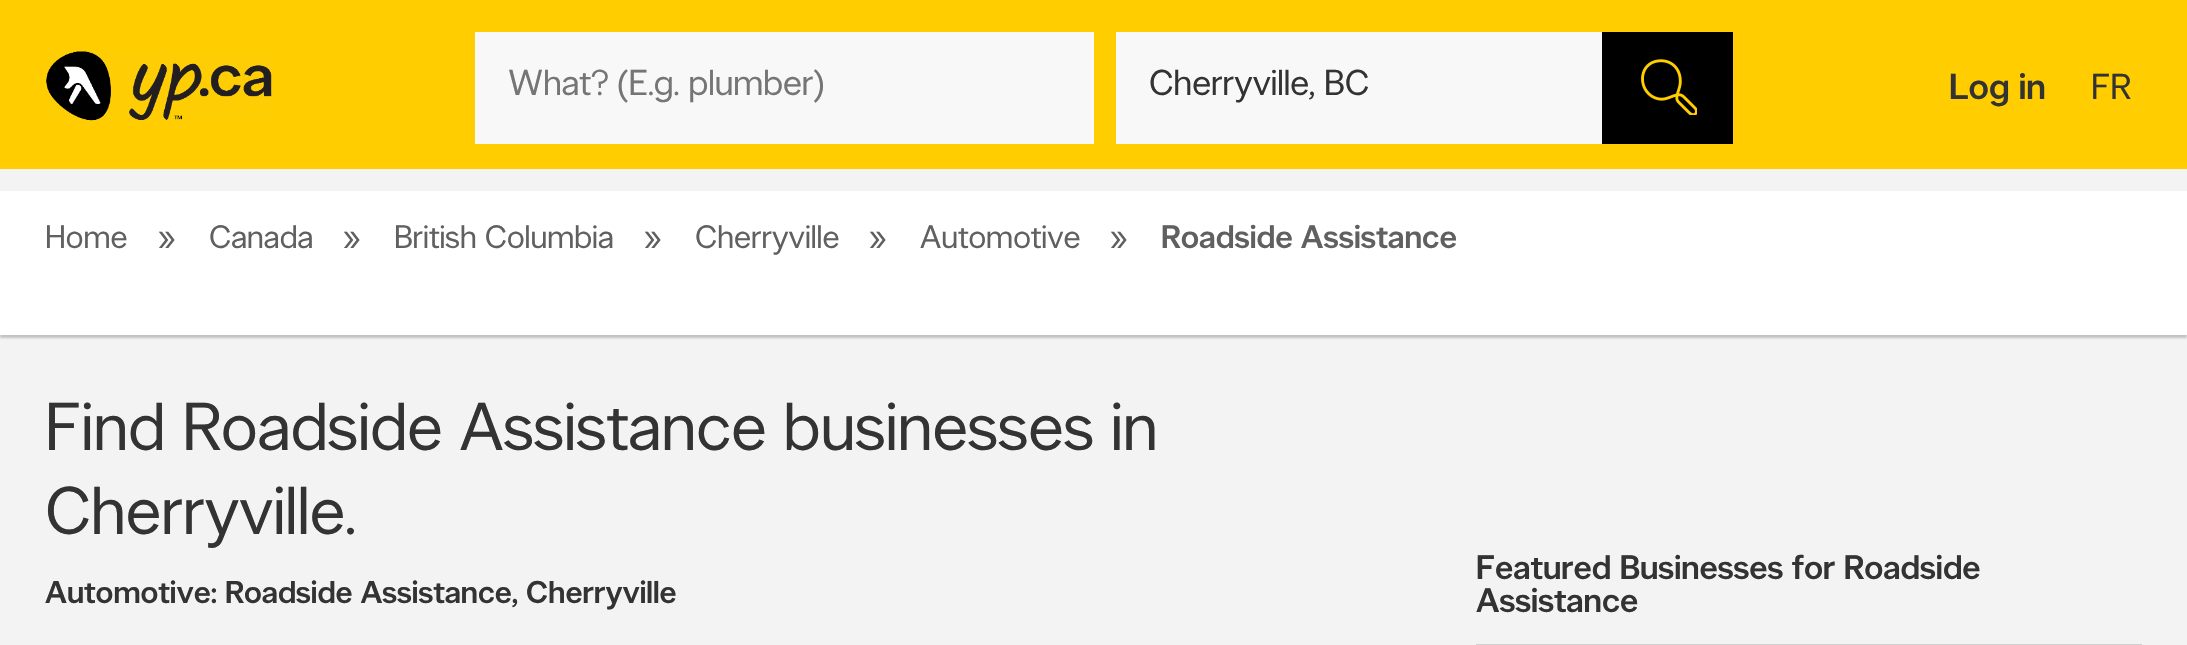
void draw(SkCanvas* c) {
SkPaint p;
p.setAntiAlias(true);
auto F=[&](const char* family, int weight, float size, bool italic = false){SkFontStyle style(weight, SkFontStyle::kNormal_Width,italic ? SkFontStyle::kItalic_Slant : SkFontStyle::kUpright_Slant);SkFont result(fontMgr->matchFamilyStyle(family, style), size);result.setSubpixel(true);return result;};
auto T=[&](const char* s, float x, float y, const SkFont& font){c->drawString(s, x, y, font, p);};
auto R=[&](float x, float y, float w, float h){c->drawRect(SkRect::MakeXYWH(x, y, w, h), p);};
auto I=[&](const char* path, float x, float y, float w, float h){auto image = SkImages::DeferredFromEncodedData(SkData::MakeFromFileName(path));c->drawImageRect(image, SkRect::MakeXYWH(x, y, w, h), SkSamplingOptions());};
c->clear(0xfff3f3f3);
p.setColor(0xffffcd00);
R(0,0,2187,169);
I("1.png",46,51,226,70);
p.setColor(0xfff8f8f8);
R(475,32,619,112);
auto f1 = F("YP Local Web",400,36);
p.setColor(0xff757575);
T("What? (E.g. plumber)",508,95,f1);
p.setColor(0xfff8f8f8);
R(1116,32,486,112);
p.setColor(0xff333333);
T("Cherryville, BC",1149,95,f1);
p.setColor(0xff000000);
R(1602,32,131,112);
I("2.png",1641,59,56,56);
auto f2 = F("YP Local Web",500,36);
p.setColor(0xff333333);
T("Log in",1949,99,f2);
T("FR",2091,99,f1);
p.setColor(0x33000000);
p.setMaskFilter(SkMaskFilter::MakeBlur(kNormal_SkBlurStyle, 1));
c->drawRect(SkRect::MakeXYWH(0,194,2187,144),p);
p.setMaskFilter(nullptr);
p.setColor(0xffffffff);
R(0,191,2187,144);
auto f3 = F("YP Local Web",400,32.5);
p.setColor(0xff606060);
T("Home",45,248,f3);
T("»",158,248,f3);
T("Canada",209,248,f3);
T("»",343,248,f3);
T("British Columbia",394,248,f3);
T("»",644,248,f3);
T("Cherryville",695,248,f3);
T("»",869,248,f3);
T("Automotive",920,248,f3);
T("»",1110,248,f3);
auto f4 = F("YP Local Web",500,32.5);
T("Roadside Assistance",1161,248,f4);
auto f5 = F("YP Local Web",400,67.5);
p.setColor(0xff333333);
T("Find Roadside Assistance businesses in",45,450,f5);
T("Cherryville.",45,534,f5);
auto f6 = F("YP Local Web",500,31.5);
T("Automotive: Roadside Assistance, Cherryville",45,603,f6);
p.setColor(0xffd0d0d0);
R(1476,644,666,1);
auto f7 = F("YP Local Web",500,33.75);
p.setColor(0xff333333);
T("Featured Businesses for Roadside",1476,579,f7);
T("Assistance",1476,612,f7);
}
